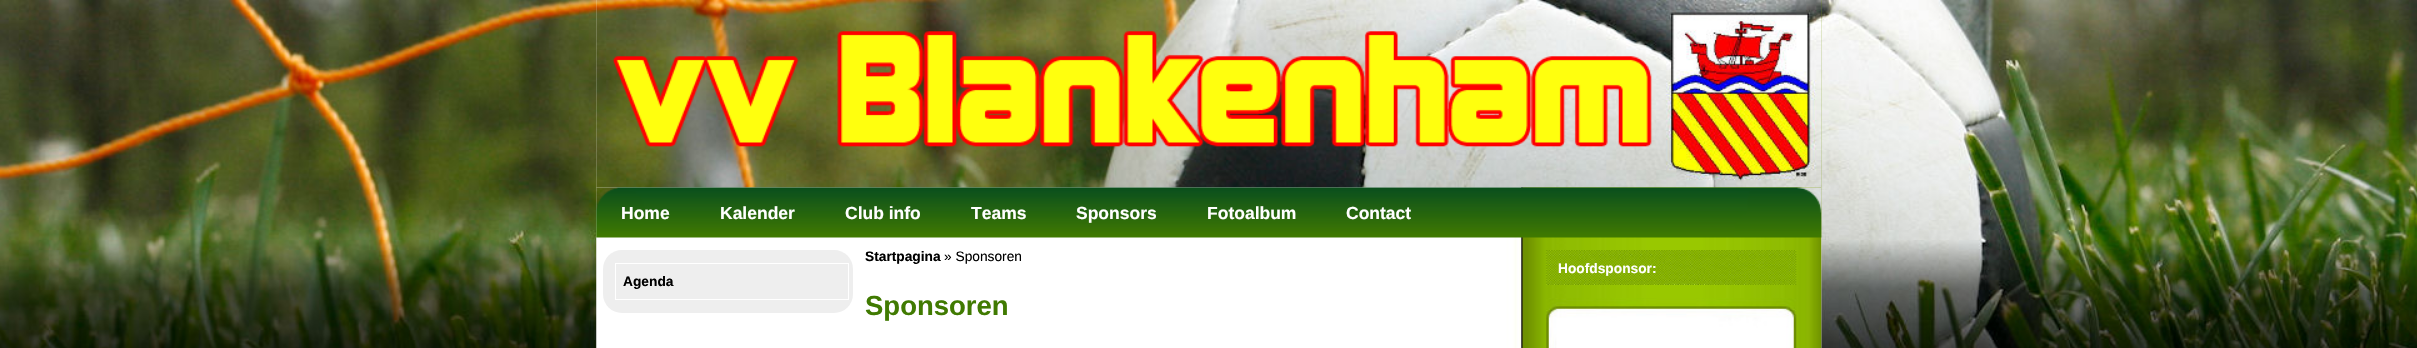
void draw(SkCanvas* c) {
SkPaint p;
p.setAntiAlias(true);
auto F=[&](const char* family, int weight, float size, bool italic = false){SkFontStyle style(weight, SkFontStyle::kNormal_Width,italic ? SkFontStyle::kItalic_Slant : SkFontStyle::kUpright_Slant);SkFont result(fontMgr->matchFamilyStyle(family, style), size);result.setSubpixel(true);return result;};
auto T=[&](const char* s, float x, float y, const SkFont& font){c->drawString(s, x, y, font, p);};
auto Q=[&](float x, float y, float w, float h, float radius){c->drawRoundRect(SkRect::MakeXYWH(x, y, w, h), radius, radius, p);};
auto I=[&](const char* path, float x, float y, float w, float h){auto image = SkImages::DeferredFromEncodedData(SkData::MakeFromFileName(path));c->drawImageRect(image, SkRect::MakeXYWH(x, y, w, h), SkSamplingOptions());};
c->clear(0xffffffff);
I("1.png",0,0,2417,348);
I("2.png",596,0,1226,348);
I("3.png",596,0,1226,188);
I("4.png",596,187,1226,51);
auto f1 = F("Liberation Sans",700,17.5);
p.setColor(0xffffffff);
T("Home",621,219,f1);
T("Kalender",720,219,f1);
T("Club info",845,219,f1);
T("Teams",971,219,f1);
T("Sponsors",1076,219,f1);
T("Fotoalbum",1207,219,f1);
T("Contact",1346,219,f1);
auto f2 = F("Liberation Sans",700,13.75);
p.setColor(0xff000000);
T("Startpagina",865,261,f2);
auto f3 = F("Liberation Sans",400,13.75);
T("» Sponsoren",944,261,f3);
auto f4 = F("Liberation Sans",700,27.5);
p.setColor(0xff407a01);
T("Sponsoren",865,315,f4);
I("5.png",1546,250,251,35);
p.setColor(0xffffffff);
T("Hoofdsponsor:",1558,273,f2);
I("6.png",1546,298,251,50);
p.setColor(0xffeeeeee);
Q(603,250,250,63,19);
p.setStroke(true);
p.setStrokeWidth(1);
p.setColor(0xffffffff);
c->drawRect(SkRect::MakeXYWH(615.5,263.5,233,36),p);
p.setStroke(false);
p.setColor(0xff000000);
T("Agenda",623,286,f2);
}
